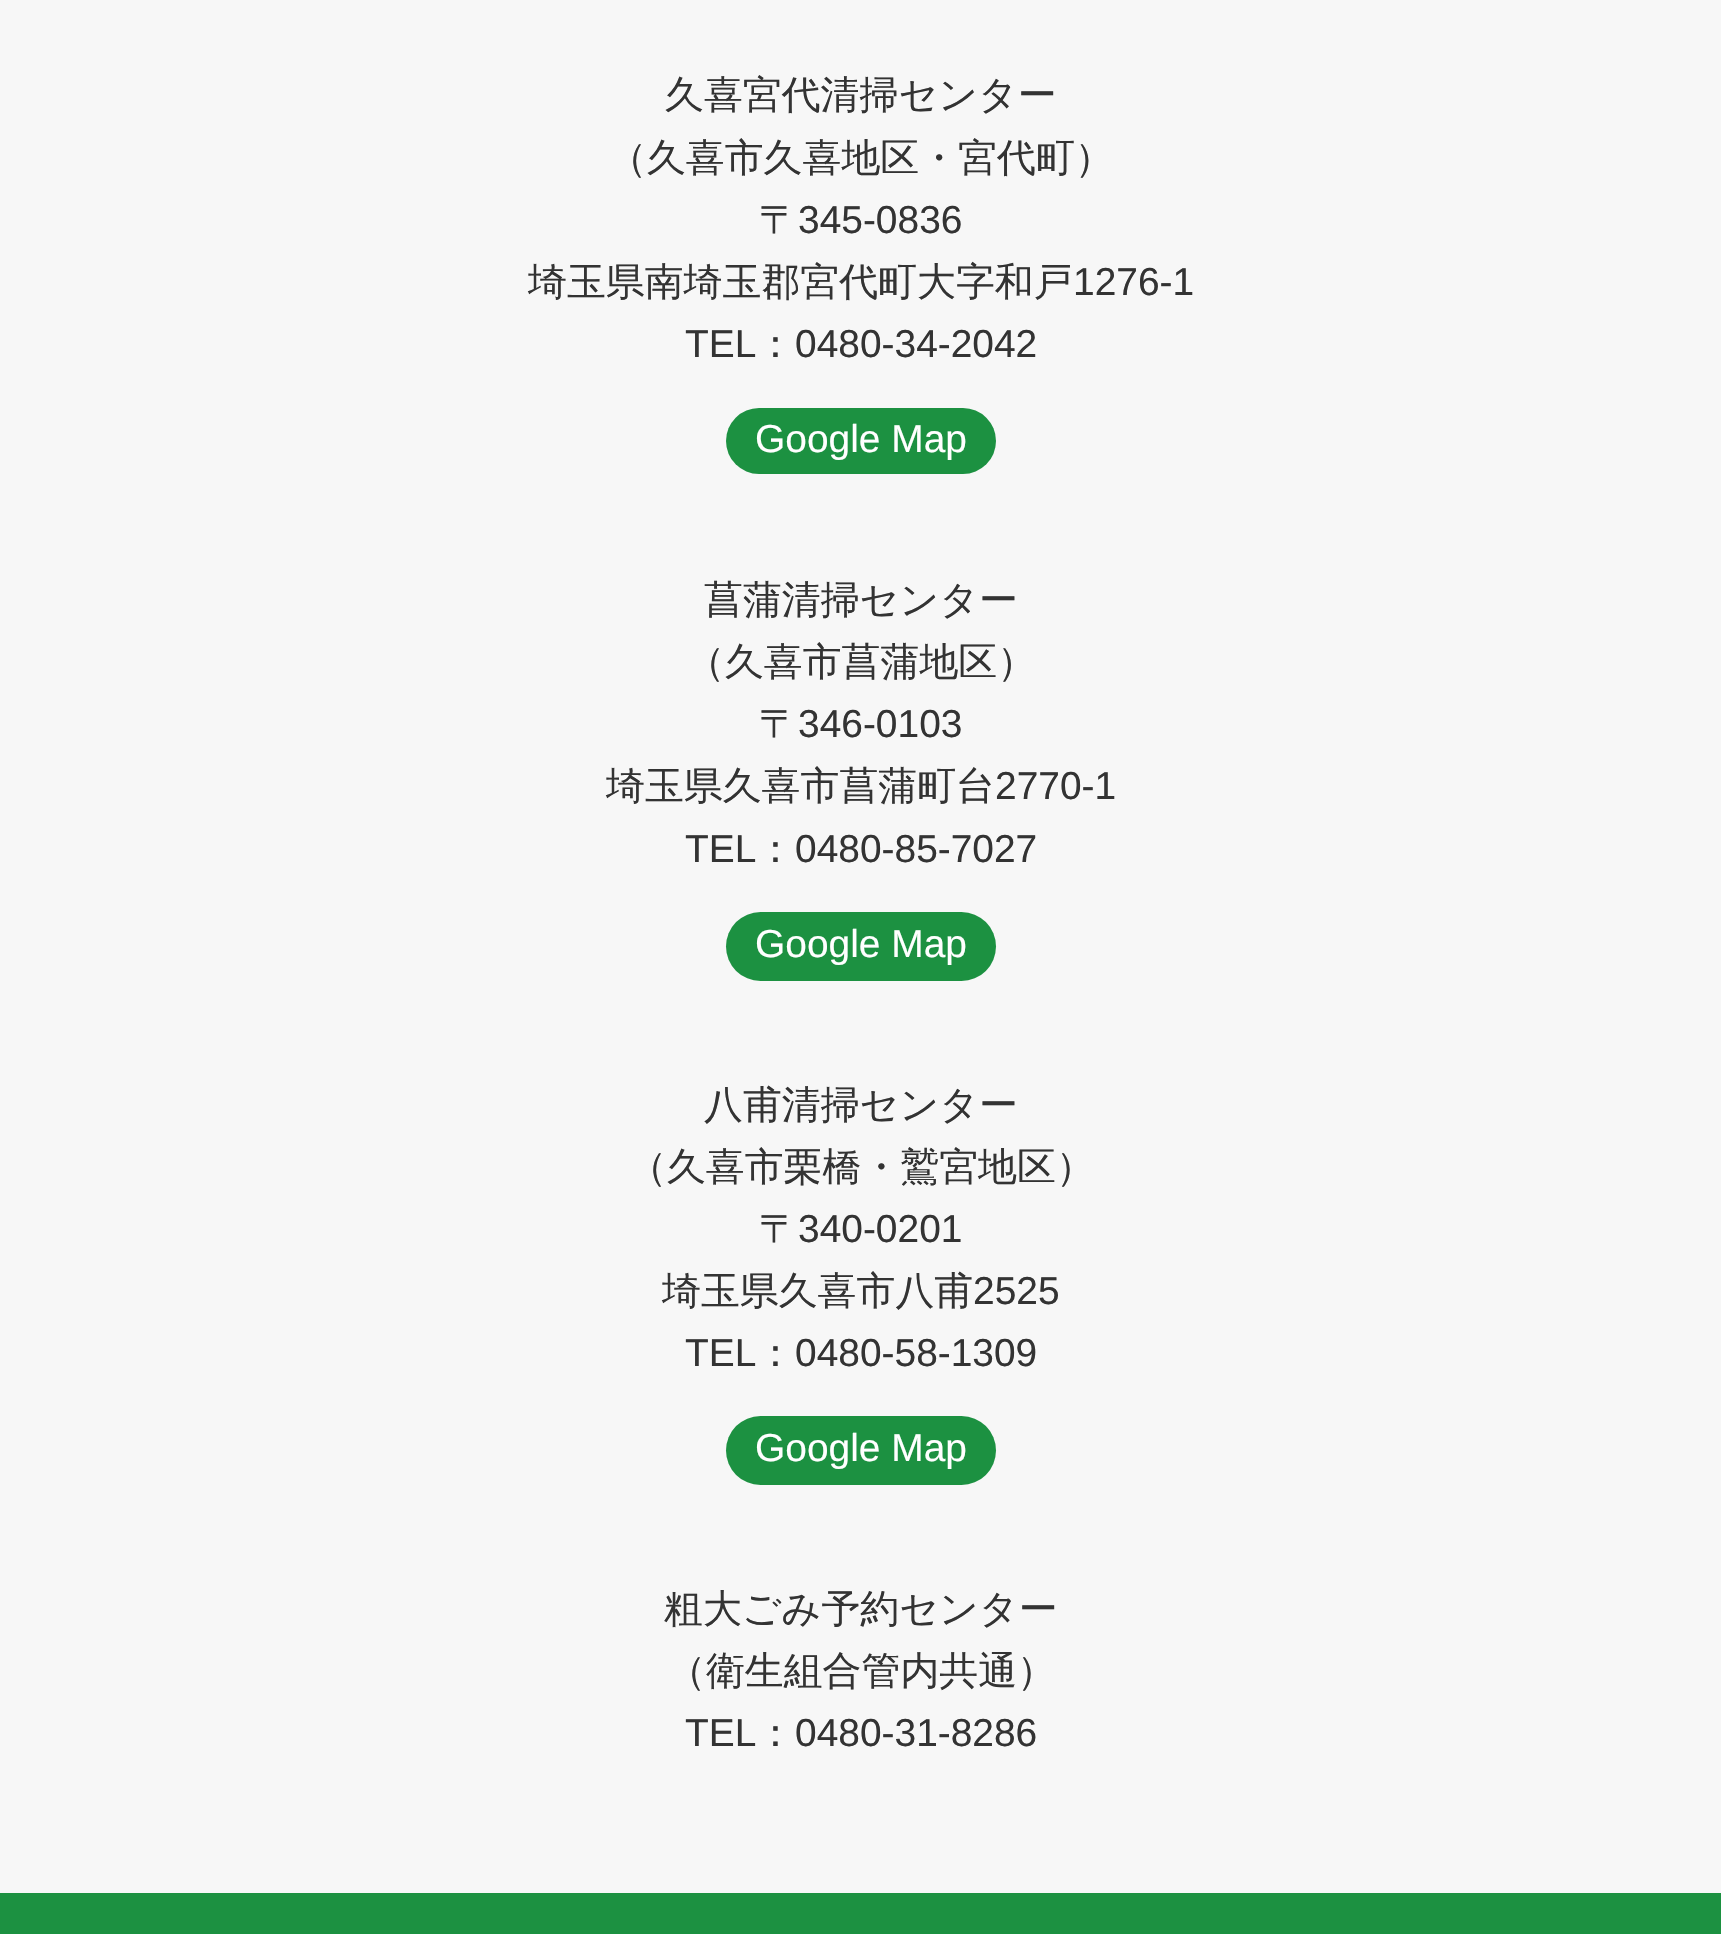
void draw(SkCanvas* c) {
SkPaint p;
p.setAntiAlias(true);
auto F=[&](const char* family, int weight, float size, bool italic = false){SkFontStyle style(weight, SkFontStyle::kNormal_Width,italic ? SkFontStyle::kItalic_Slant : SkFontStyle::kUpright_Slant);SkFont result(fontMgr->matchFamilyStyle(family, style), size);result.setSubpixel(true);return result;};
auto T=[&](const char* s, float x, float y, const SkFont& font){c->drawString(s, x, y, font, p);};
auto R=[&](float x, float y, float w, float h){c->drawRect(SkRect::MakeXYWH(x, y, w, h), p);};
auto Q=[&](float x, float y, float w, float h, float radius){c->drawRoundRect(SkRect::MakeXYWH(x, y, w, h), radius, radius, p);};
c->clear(0xfff7f7f7);
auto f1 = F("WenQuanYi Zen Hei",500,38.9);
p.setColor(0xff333333);
T("久喜宮代清掃センター",665,108,f1);
T("（久喜市久喜地区・宮代町）",608,171,f1);
T("〒",759,233,f1);
auto f2 = F("Liberation Sans",400,38.9);
T("345-0836",798,233,f2);
T("埼玉県南埼玉郡宮代町大字和戸",528,295,f1);
T("1276-1",1073,295,f2);
T("TEL",685,357,f2);
T("：",756,357,f1);
T("0480-34-2042",795,357,f2);
p.setColor(0xff1c9141);
Q(726,408,270,66,33);
p.setColor(0xffffffff);
T("Google Map",755,452,f2);
p.setColor(0xff333333);
T("菖蒲清掃センター",704,613,f1);
T("（久喜市菖蒲地区）",686,675,f1);
T("〒",759,737,f1);
T("346-0103",798,737,f2);
T("埼玉県久喜市菖蒲町台",606,799,f1);
T("2770-1",995,799,f2);
T("TEL",685,862,f2);
T("：",756,862,f1);
T("0480-85-7027",795,862,f2);
p.setColor(0xff1c9141);
Q(726,912,270,69,34.5);
p.setColor(0xffffffff);
T("Google Map",755,957,f2);
p.setColor(0xff333333);
T("八甫清掃センター",704,1118,f1);
T("（久喜市栗橋・鷲宮地区）",628,1180,f1);
T("〒",759,1242,f1);
T("340-0201",798,1242,f2);
T("埼玉県久喜市八甫",662,1304,f1);
T("2525",973,1304,f2);
T("TEL",685,1366,f2);
T("：",756,1366,f1);
T("0480-58-1309",795,1366,f2);
p.setColor(0xff1c9141);
Q(726,1416,270,69,34.5);
p.setColor(0xffffffff);
T("Google Map",755,1461,f2);
p.setColor(0xff333333);
T("粗大ごみ予約センター",664,1622,f1);
T("（衛生組合管内共通）",667,1684,f1);
T("TEL",685,1746,f2);
T("：",756,1746,f1);
T("0480-31-8286",795,1746,f2);
p.setColor(0xff1c9141);
R(0,1893,1721,41);
}
